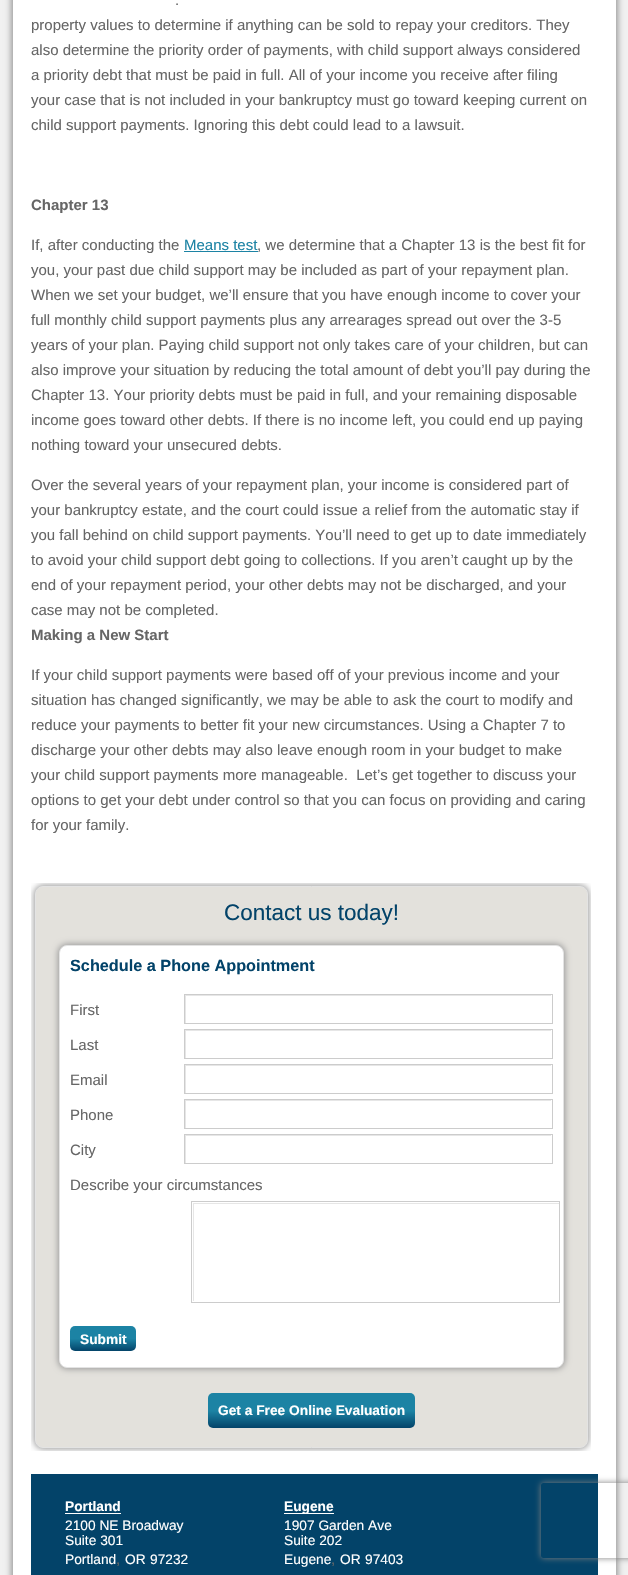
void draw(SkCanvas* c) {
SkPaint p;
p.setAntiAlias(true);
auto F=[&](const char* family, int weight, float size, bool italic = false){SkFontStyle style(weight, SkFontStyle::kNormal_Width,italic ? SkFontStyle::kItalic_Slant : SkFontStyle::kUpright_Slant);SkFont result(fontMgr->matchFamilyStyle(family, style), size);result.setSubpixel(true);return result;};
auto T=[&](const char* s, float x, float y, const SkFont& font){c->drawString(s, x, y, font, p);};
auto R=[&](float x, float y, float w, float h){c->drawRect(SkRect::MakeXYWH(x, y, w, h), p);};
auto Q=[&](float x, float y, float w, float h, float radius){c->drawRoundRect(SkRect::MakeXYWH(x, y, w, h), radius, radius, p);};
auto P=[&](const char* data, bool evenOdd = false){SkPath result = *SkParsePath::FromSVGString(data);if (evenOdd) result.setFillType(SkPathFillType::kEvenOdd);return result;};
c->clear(0xfff1f1f1);
p.setColor(0xff999999);
p.setMaskFilter(SkMaskFilter::MakeBlur(kNormal_SkBlurStyle, 3));
c->drawRect(SkRect::MakeXYWH(11,-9,607,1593),p);
p.setMaskFilter(nullptr);
p.setColor(0xffffffff);
R(13,0,603,1575);
auto f1 = F("Liberation Sans",400,15);
p.setColor(0xff666666);
T(".",175,5,f1);
T("property values to determine if anything can be sold to repay your creditors. They",31,30,f1);
T("also determine the priority order of payments, with child support always considered",31,55,f1);
T("a priority debt that must be paid in full. All of your income you receive after filing",31,80,f1);
T("your case that is not included in your bankruptcy must go toward keeping current on",31,105,f1);
T("child support payments. Ignoring this debt could lead to a lawsuit.",31,130,f1);
auto f2 = F("Liberation Sans",700,15);
T("Chapter 13",31,210,f2);
T("If, after conducting the",31,250,f1);
p.setColor(0xff1c83a4);
T("Means test",184,250,f1);
R(184,251,74,1);
p.setColor(0xff666666);
T(", we determine that a Chapter 13 is the best fit for",257,250,f1);
T("you, your past due child support may be included as part of your repayment plan.",31,275,f1);
T("When we set your budget, we’ll ensure that you have enough income to cover your",31,300,f1);
T("full monthly child support payments plus any arrearages spread out over the 3-5",31,325,f1);
T("years of your plan. Paying child support not only takes care of your children, but can",31,350,f1);
T("also improve your situation by reducing the total amount of debt you’ll pay during the",31,375,f1);
T("Chapter 13. Your priority debts must be paid in full, and your remaining disposable",31,400,f1);
T("income goes toward other debts. If there is no income left, you could end up paying",31,425,f1);
T("nothing toward your unsecured debts.",31,450,f1);
T("Over the several years of your repayment plan, your income is considered part of",31,490,f1);
T("your bankruptcy estate, and the court could issue a relief from the automatic stay if",31,515,f1);
T("you fall behind on child support payments. You’ll need to get up to date immediately",31,540,f1);
T("to avoid your child support debt going to collections. If you aren’t caught up by the",31,565,f1);
T("end of your repayment period, your other debts may not be discharged, and your",31,590,f1);
T("case may not be completed.",31,615,f1);
T("Making a New Start",31,640,f2);
T("If your child support payments were based off of your previous income and your",31,680,f1);
T("situation has changed significantly, we may be able to ask the court to modify and",31,705,f1);
T("reduce your payments to better fit your new circumstances. Using a Chapter 7 to",31,730,f1);
T("discharge your other debts may also leave enough room in your budget to make",31,755,f1);
T("your child support payments more manageable.  Let’s get together to discuss your",31,780,f1);
T("options to get your debt under control so that you can focus on providing and caring",31,805,f1);
T("for your family.",31,830,f1);
c->save();
c->clipRect(SkRect::MakeXYWH(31,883,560,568));
p.setColor(0xff999999);
p.setMaskFilter(SkMaskFilter::MakeBlur(kNormal_SkBlurStyle, 3));
c->drawRoundRect(SkRect::MakeXYWH(34,885,555,564),9,9,p);
p.setMaskFilter(nullptr);
c->restore();
p.setColor(0xffe3e1dc);
c->drawRoundRect(SkRect::MakeXYWH(35.5,886.5,552,561),7.5,7.5,p);
p.setStroke(true);
p.setStrokeWidth(1);
p.setColor(0xffe3e3e3);
c->drawRoundRect(SkRect::MakeXYWH(35.5,886.5,552,561),7.5,7.5,p);
auto f3 = F("Liberation Sans",400,22.5);
p.setStroke(false);
p.setColor(0xff034369);
T("Contact us today!",224,920,f3);
p.setColor(0xff999999);
p.setMaskFilter(SkMaskFilter::MakeBlur(kNormal_SkBlurStyle, 3));
c->drawRoundRect(SkRect::MakeXYWH(58,944,507,425),9,9,p);
p.setMaskFilter(nullptr);
p.setColor(0xffffffff);
c->drawRoundRect(SkRect::MakeXYWH(59.5,945.5,504,422),7.5,7.5,p);
p.setStroke(true);
p.setColor(0xffe3e3e3);
c->drawRoundRect(SkRect::MakeXYWH(59.5,945.5,504,422),7.5,7.5,p);
auto f4 = F("Liberation Sans",700,16.25);
p.setStroke(false);
p.setColor(0xff034369);
T("Schedule a Phone Appointment",70,971,f4);
p.setColor(0xff666666);
T("First",70,1015,f1);
c->save();
c->clipRect(SkRect::MakeXYWH(185,995,366,28));
p.setColor(0xffe6e6e6);
c->drawPath(P("M61 871h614v275h-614zm125 125h366v28h-366z",true),p);
c->restore();
p.setStroke(true);
p.setColor(0xffcccccc);
c->drawRect(SkRect::MakeXYWH(184.5,994.5,368,29),p);
p.setStroke(false);
p.setColor(0xff666666);
T("Last",70,1050,f1);
c->save();
c->clipRect(SkRect::MakeXYWH(185,1030,366,28));
p.setColor(0xffe6e6e6);
c->drawPath(P("M61 906h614v275h-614zm125 125h366v28h-366z",true),p);
c->restore();
p.setStroke(true);
p.setColor(0xffcccccc);
c->drawRect(SkRect::MakeXYWH(184.5,1029.5,368,29),p);
p.setStroke(false);
p.setColor(0xff666666);
T("Email",70,1085,f1);
c->save();
c->clipRect(SkRect::MakeXYWH(185,1065,366,28));
p.setColor(0xffe6e6e6);
c->drawPath(P("M61 941h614v275h-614zm125 125h366v28h-366z",true),p);
c->restore();
p.setStroke(true);
p.setColor(0xffcccccc);
c->drawRect(SkRect::MakeXYWH(184.5,1064.5,368,29),p);
p.setStroke(false);
p.setColor(0xff666666);
T("Phone",70,1120,f1);
c->save();
c->clipRect(SkRect::MakeXYWH(185,1100,366,28));
p.setColor(0xffe6e6e6);
c->drawPath(P("M61 976h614v275h-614zm125 125h366v28h-366z",true),p);
c->restore();
p.setStroke(true);
p.setColor(0xffcccccc);
c->drawRect(SkRect::MakeXYWH(184.5,1099.5,368,29),p);
p.setStroke(false);
p.setColor(0xff666666);
T("City",70,1155,f1);
c->save();
c->clipRect(SkRect::MakeXYWH(185,1135,366,28));
p.setColor(0xffe6e6e6);
c->drawPath(P("M61 1011h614v275h-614zm125 125h366v28h-366z",true),p);
c->restore();
p.setStroke(true);
p.setColor(0xffcccccc);
c->drawRect(SkRect::MakeXYWH(184.5,1134.5,368,29),p);
p.setStroke(false);
p.setColor(0xff666666);
T("Describe your circumstances",70,1190,f1);
c->save();
c->clipRect(SkRect::MakeXYWH(193,1203,366,98));
p.setColor(0xffe6e6e6);
c->drawPath(P("M69 1079h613v346h-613zm125 125h366v98h-366z",true),p);
c->restore();
p.setStroke(true);
p.setColor(0xffcccccc);
c->drawRect(SkRect::MakeXYWH(191.5,1201.5,368,101),p);
p.setStroke(false);
{
const SkColor colors[] = {0xff1c83a4,0xff034369};
const float stops[] = {.51,1};
const SkPoint ends[] = {{103,1326}, {103,1351}};
p.setShader(SkGradientShader::MakeLinear(ends, colors, stops, 2, SkTileMode::kClamp));
p.setAlpha(255);
}
Q(70,1326,66,25,5);
auto f5 = F("Liberation Sans",700,13.75);
p.setShader(nullptr);
p.setColor(0xffffffff);
T("Submit",80,1344,f5);
{
const SkColor colors[] = {0xff1c83a4,0xff034369};
const float stops[] = {.51,1};
const SkPoint ends[] = {{311,1393}, {311,1428}};
p.setShader(SkGradientShader::MakeLinear(ends, colors, stops, 2, SkTileMode::kClamp));
p.setAlpha(255);
}
Q(208,1393,207,35,5);
p.setShader(nullptr);
p.setColor(0xffffffff);
T("Get a Free Online Evaluation",218,1415,f5);
p.setColor(0xff034369);
R(31,1474,567,101);
p.setColor(0xffffffff);
T("Portland",65,1511,f5);
R(65,1513,56,1);
auto f6 = F("Liberation Sans",400,13.75);
T("2100 NE Broadway",65,1530,f6);
T("Suite 301",65,1545,f6);
T("Portland",65,1564,f6);
p.setColor(0xff666666);
T(",",116,1564,f1);
p.setColor(0xffffffff);
T("OR",125,1564,f6);
T("97232",150,1564,f6);
R(284,1513,50,1);
T("Eugene",284,1511,f5);
T("1907 Garden Ave",284,1530,f6);
T("Suite 202",284,1545,f6);
T("Eugene",284,1564,f6);
p.setColor(0xff666666);
T(",",331,1564,f1);
p.setColor(0xffffffff);
T("OR",340,1564,f6);
T("97403",365,1564,f6);
c->save();
c->clipPath(P("M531 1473h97v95h-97zm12.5 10h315c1.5 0 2.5 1 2.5 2.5v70c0 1.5-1 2.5-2.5 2.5h-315c-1.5 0-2.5-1-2.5-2.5v-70c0-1.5 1-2.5 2.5-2.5z",true),true);
p.setColor(0xff808080);
p.setMaskFilter(SkMaskFilter::MakeBlur(kNormal_SkBlurStyle, 3));
c->drawRoundRect(SkRect::MakeXYWH(541,1483,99,75),2.5,2.5,p);
p.setMaskFilter(nullptr);
c->restore();
}
